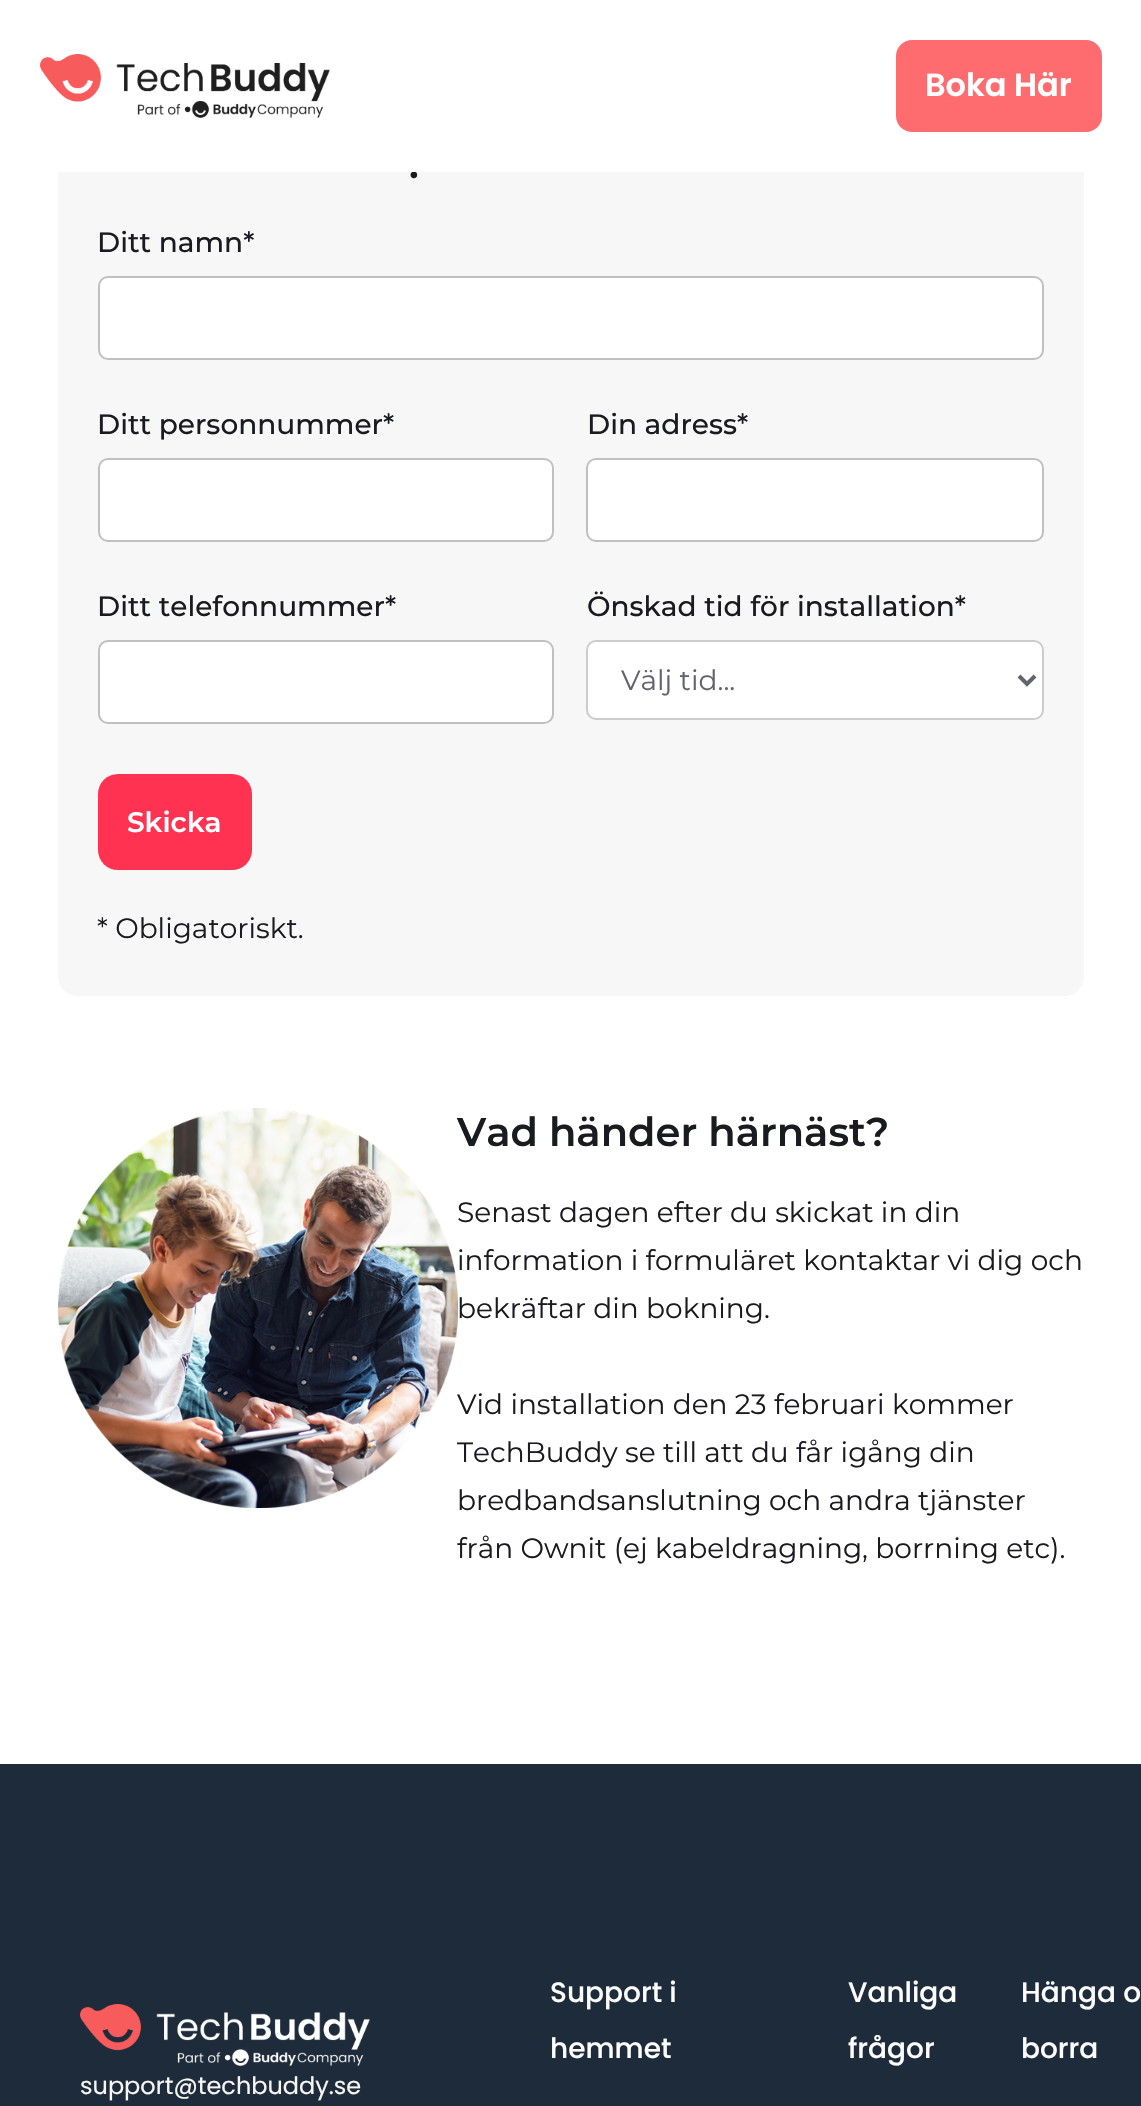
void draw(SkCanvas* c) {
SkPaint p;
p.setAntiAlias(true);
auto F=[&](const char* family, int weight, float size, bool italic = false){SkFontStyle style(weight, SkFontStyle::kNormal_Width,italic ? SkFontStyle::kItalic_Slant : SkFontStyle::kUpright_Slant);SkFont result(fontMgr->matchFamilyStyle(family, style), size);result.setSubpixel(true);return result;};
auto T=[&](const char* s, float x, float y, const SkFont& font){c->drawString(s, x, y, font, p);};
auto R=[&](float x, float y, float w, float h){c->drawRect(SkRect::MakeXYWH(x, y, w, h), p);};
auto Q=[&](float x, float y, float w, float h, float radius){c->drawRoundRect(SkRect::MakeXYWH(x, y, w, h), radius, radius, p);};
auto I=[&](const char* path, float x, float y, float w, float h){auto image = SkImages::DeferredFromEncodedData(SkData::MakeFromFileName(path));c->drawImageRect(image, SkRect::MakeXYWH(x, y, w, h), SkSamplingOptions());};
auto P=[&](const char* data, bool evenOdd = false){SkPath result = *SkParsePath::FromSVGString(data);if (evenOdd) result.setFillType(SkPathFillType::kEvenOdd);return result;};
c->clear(0xffffffff);
p.setColor(0xfff7f7f7);
Q(58,-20,1026,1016,20);
auto f1 = F("Montserrat",600,40);
p.setColor(0xff1a1b1f);
T(".",409,178,f1);
p.setColor(0xffffffff);
R(58,0,1026,172);
I("1.png",40,54,290,64);
p.setColor(0xffff6c70);
Q(896,40,206,92,16);
auto f2 = F("Poppins",600,32);
p.setColor(0xffffffff);
T("Boka Här",925,96,f2);
auto f3 = F("Montserrat",500,28);
p.setColor(0xff1a1b1f);
T("Ditt namn*",97,252,f3);
p.setColor(0xffffffff);
c->drawRoundRect(SkRect::MakeXYWH(99,277,944,82),9,9,p);
p.setStroke(true);
p.setStrokeWidth(2);
p.setColor(0xffc0c0c0);
c->drawRoundRect(SkRect::MakeXYWH(99,277,944,82),9,9,p);
p.setStroke(false);
p.setColor(0xff1a1b1f);
T("Ditt personnummer*",97,434,f3);
p.setColor(0xffffffff);
c->drawRoundRect(SkRect::MakeXYWH(99,459,454,82),9,9,p);
p.setStroke(true);
p.setColor(0xffc0c0c0);
c->drawRoundRect(SkRect::MakeXYWH(99,459,454,82),9,9,p);
p.setStroke(false);
p.setColor(0xff1a1b1f);
T("Din adress*",587,434,f3);
p.setColor(0xffffffff);
c->drawRoundRect(SkRect::MakeXYWH(587,459,456,82),9,9,p);
p.setStroke(true);
p.setColor(0xffc0c0c0);
c->drawRoundRect(SkRect::MakeXYWH(587,459,456,82),9,9,p);
p.setStroke(false);
p.setColor(0xff1a1b1f);
T("Ditt telefonnummer*",97,616,f3);
p.setColor(0xffffffff);
c->drawRoundRect(SkRect::MakeXYWH(99,641,454,82),9,9,p);
p.setStroke(true);
p.setColor(0xffc0c0c0);
c->drawRoundRect(SkRect::MakeXYWH(99,641,454,82),9,9,p);
p.setStroke(false);
p.setColor(0xff1a1b1f);
T("Önskad tid för installation*",587,616,f3);
p.setColor(0xffffffff);
c->drawRoundRect(SkRect::MakeXYWH(587,641,456,78),9,9,p);
p.setStroke(true);
p.setColor(0xffcccccc);
c->drawRoundRect(SkRect::MakeXYWH(587,641,456,78),9,9,p);
p.setStrokeWidth(4);
p.setColor(0xff62636b);
c->drawPath(P("M1019 676l8 8l8-8"),p);
auto f4 = F("Montserrat",400,28);
p.setStroke(false);
T("Välj tid...",621,690,f4);
p.setColor(0xffff3252);
Q(98,774,154,96,20);
auto f5 = F("Montserrat",600,28);
p.setColor(0xffffffff);
T("Skicka",127,832,f5);
p.setColor(0xff1a1b1f);
T("* Obligatoriskt.",97,938,f4);
I("2.png",58,1108,400,400);
T("Vad händer härnäst?",457,1146,f1);
T("Senast dagen efter du skickat in din",457,1222,f4);
T("information i formuläret kontaktar vi dig och",457,1270,f4);
T("bekräftar din bokning.",457,1318,f4);
T("Vid installation den 23 februari kommer",457,1414,f4);
T("TechBuddy se till att du får igång din",457,1462,f4);
T("bredbandsanslutning och andra tjänster",457,1510,f4);
T("från Ownit (ej kabeldragning, borrning etc).",457,1558,f4);
p.setColor(0xff1d2b3b);
R(0,1764,1141,342);
auto f6 = F("Poppins",500,28);
p.setColor(0xffffffff);
T("Support i",550,2002,f6);
T("hemmet",550,2058,f6);
T("Vanliga",848,2002,f6);
T("frågor",848,2058,f6);
T("Hänga o",1021,2002,f6);
T("borra",1021,2058,f6);
I("3.png",80,2004,290,62);
auto f7 = F("Poppins",400,24);
p.setColor(0xfff8f6f4);
T("support@techbuddy.se",80,2094,f7);
}
